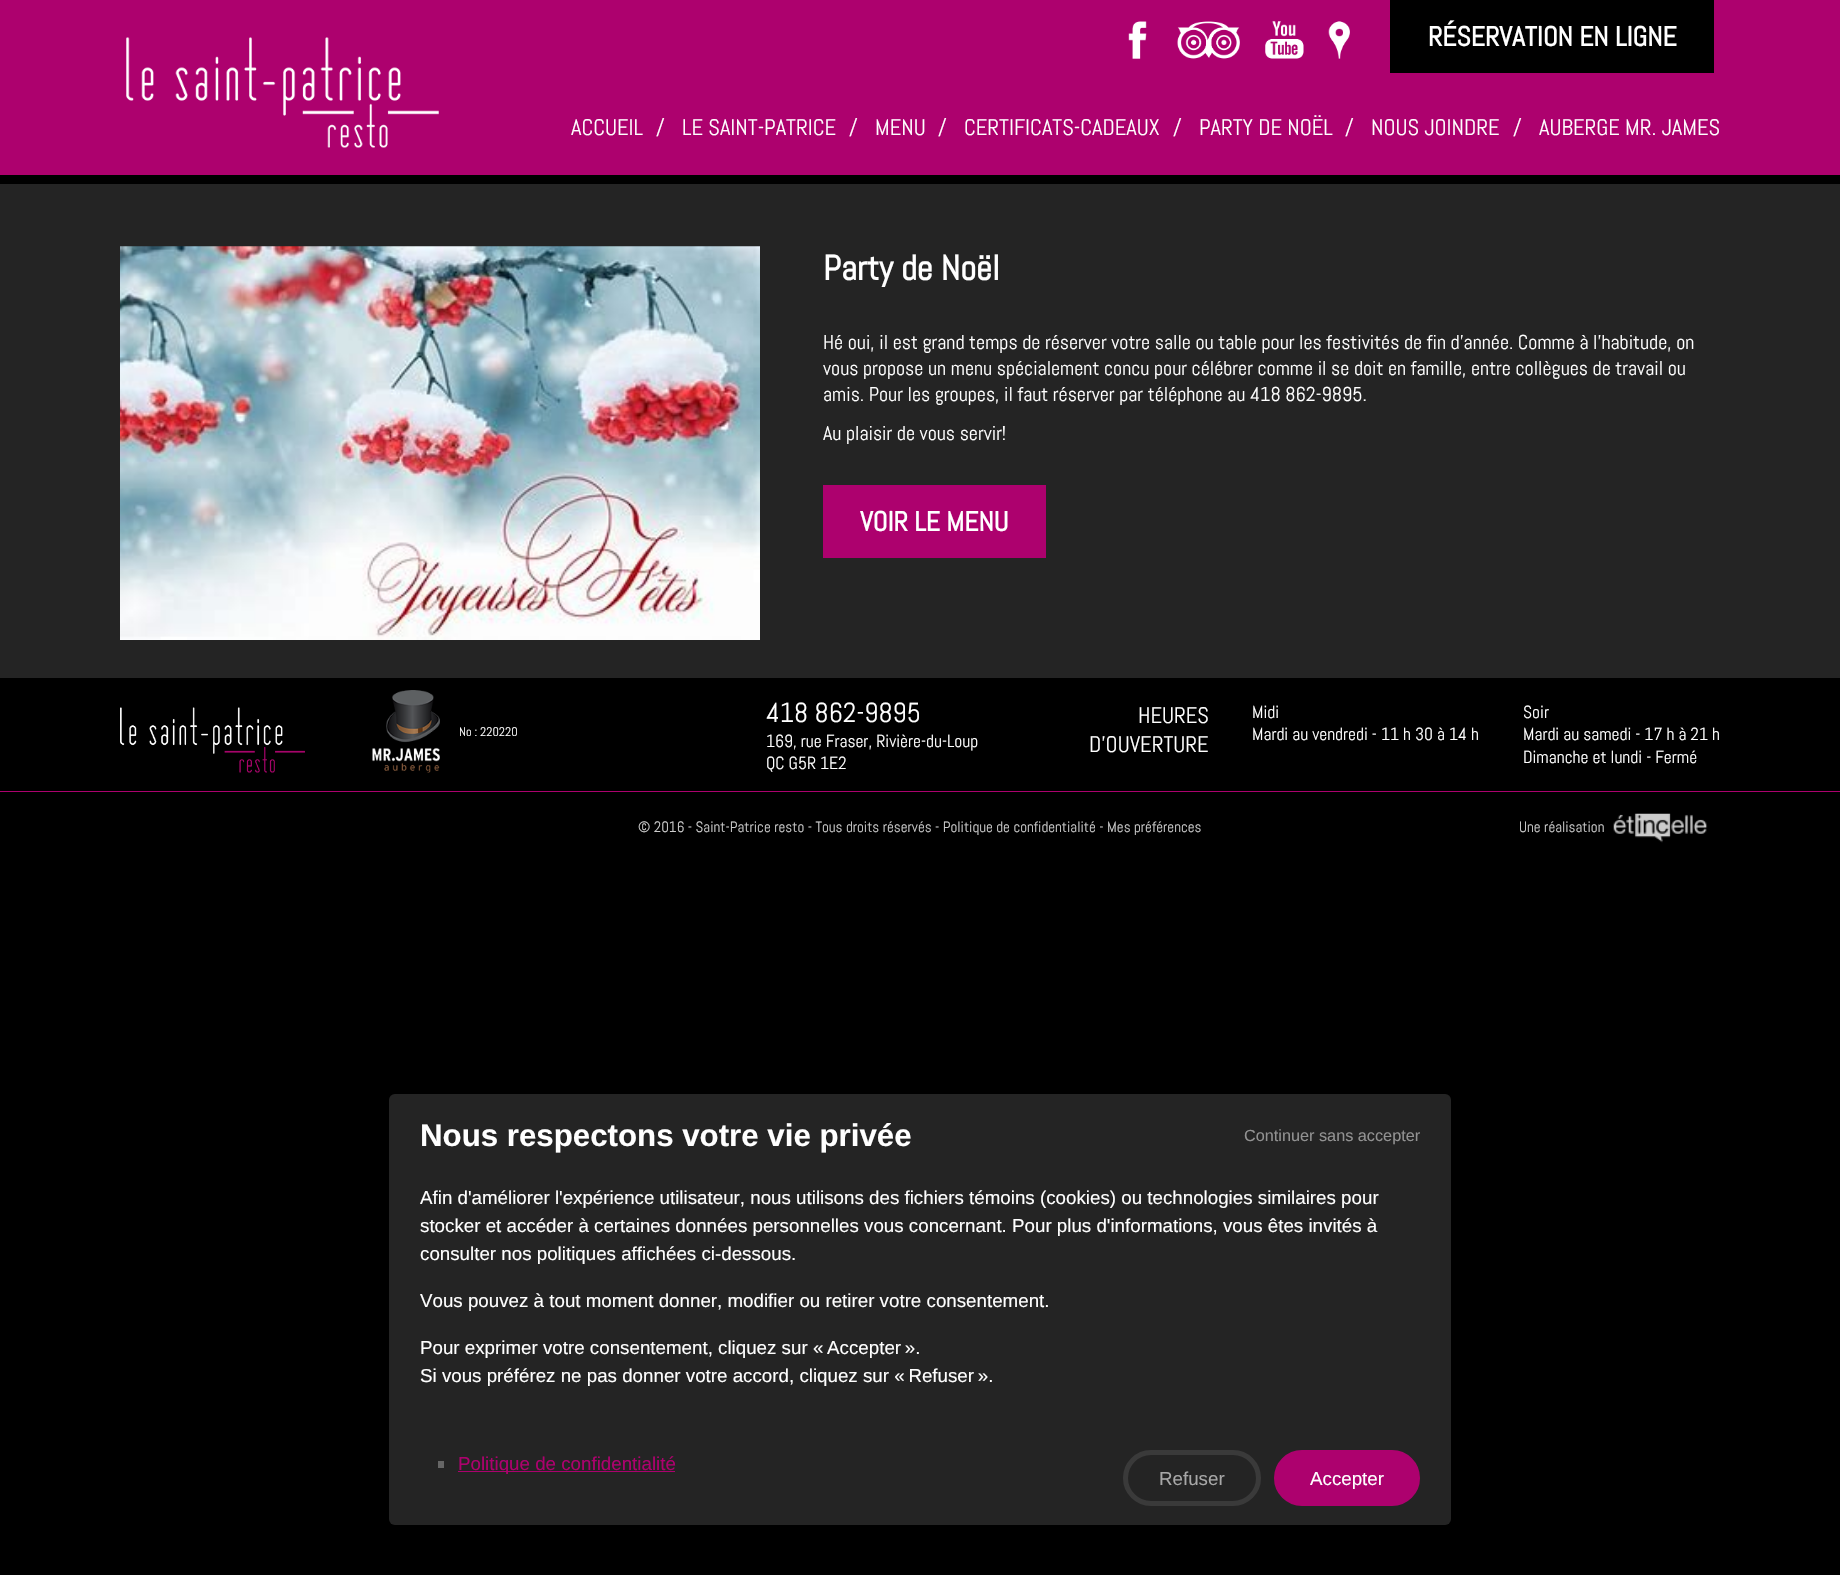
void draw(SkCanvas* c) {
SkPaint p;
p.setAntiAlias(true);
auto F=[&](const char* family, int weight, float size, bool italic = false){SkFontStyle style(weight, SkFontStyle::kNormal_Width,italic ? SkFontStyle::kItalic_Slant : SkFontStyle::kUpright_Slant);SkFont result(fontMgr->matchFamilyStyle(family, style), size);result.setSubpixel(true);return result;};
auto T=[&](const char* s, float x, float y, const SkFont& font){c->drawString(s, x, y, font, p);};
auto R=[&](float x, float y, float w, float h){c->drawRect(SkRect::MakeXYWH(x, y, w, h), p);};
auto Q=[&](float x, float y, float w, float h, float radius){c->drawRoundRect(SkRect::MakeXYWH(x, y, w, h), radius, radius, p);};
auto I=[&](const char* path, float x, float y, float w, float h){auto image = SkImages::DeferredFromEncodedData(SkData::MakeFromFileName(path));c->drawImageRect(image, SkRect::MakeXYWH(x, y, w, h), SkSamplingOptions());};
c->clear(0xff000000);
p.setColor(0xffad016e);
R(0,0,1840,175);
I("1.png",126,37,313,111);
I("2.png",1128,21,19,38);
I("3.png",1177,21,63,38);
I("4.png",1265,21,39,38);
I("5.png",1328,21,22,38);
p.setColor(0xff000000);
R(1390,0,324,73);
auto f1 = F("Abel",700,27.5);
p.setColor(0xffffffff);
T("RÉSERVATION EN LIGNE",1428,46,f1);
auto f2 = F("Abel",400,22.5);
T("ACCUEIL",571,135,f2);
T("/",656,135,f2);
T("LE SAINT-PATRICE",682,135,f2);
T("/",849,135,f2);
T("MENU",875,135,f2);
T("/",938,135,f2);
T("CERTIFICATS-CADEAUX",964,135,f2);
T("/",1173,135,f2);
T("PARTY DE NOËL",1199,135,f2);
T("/",1345,135,f2);
T("NOUS JOINDRE",1371,135,f2);
T("/",1513,135,f2);
T("AUBERGE MR. JAMES",1539,135,f2);
p.setColor(0xff242424);
R(0,184,1840,494);
I("6.png",120,246,640,394);
auto f3 = F("Abel",700,35);
p.setColor(0xffffffff);
T("Party de Noël",823,280,f3);
auto f4 = F("Abel",400,20);
T("Hé oui, il est grand temps de réserver votre salle ou table pour les festivités de fin d'année. Comme à l'habitude, on",823,349,f4);
T("vous propose un menu spécialement concu pour célébrer comme il se doit en famille, entre collègues de travail ou",823,375,f4);
T("amis. Pour les groupes, il faut réserver par téléphone au 418 862-9895.",823,401,f4);
T("Au plaisir de vous servir!",823,440,f4);
p.setColor(0xffad016e);
R(823,485,223,73);
p.setColor(0xffffffff);
T("VOIR LE MENU",860,531,f1);
p.setColor(0xffad016e);
R(0,791,1840,1);
I("7.png",120,707,185,66);
I("8.png",372,690,68,83);
auto f5 = F("Abel",400,12.5);
p.setColor(0xffffffff);
T("No : 220220",459,736,f5);
auto f6 = F("Abel",400,27.5);
T("418 862-9895",766,722,f6);
auto f7 = F("Abel",400,17.5);
T("169, rue Fraser, Rivière-du-Loup",766,747,f7);
T("QC G5R 1E2",766,769,f7);
T("HEURES",1138,723,f2);
T("D'OUVERTURE",1089,752,f2);
T("Midi",1252,718,f7);
T("Mardi au vendredi - 11 h 30 à 14 h",1252,740,f7);
T("Soir",1523,718,f7);
T("Mardi au samedi - 17 h à 21 h",1523,740,f7);
T("Dimanche et lundi - Fermé",1523,763,f7);
auto f8 = F("Abel",400,15);
p.setColor(0xffcccccc);
T("© 2016 - Saint-Patrice resto - Tous droits réservés - Politique de confidentialité - Mes préférences",638,832,f8);
T("Une réalisation",1519,832,f8);
I("9.png",1613,813,95,30);
p.setColor(0xff242424);
Q(389,1094,1062,431,6);
auto f9 = F("Liberation Sans",700,31.25);
p.setColor(0xffffffff);
T("Nous respectons votre vie privée",420,1146,f9);
auto f10 = F("Liberation Sans",400,16.25);
p.setColor(0xff929292);
T("Continuer sans accepter",1244,1141,f10);
auto f11 = F("Liberation Sans",400,18.75);
p.setColor(0xffffffff);
T("Afin d'améliorer l'expérience utilisateur, nous utilisons des fichiers témoins (cookies) ou technologies similaires pour",420,1204,f11);
T("stocker et accéder à certaines données personnelles vous concernant. Pour plus d'informations, vous êtes invités à",420,1232,f11);
T("consulter nos politiques affichées ci-dessous.",420,1260,f11);
T("Vous pouvez à tout moment donner, modifier ou retirer votre consentement.",420,1307,f11);
T("Pour exprimer votre consentement, cliquez sur « Accepter ».",420,1354,f11);
T("Si vous préférez ne pas donner votre accord, cliquez sur « Refuser ».",420,1382,f11);
p.setColor(0xff666666);
R(438,1461,6,7);
p.setColor(0xffad016e);
R(458,1471,217,1);
T("Politique de confidentialité",458,1470,f11);
p.setStroke(true);
p.setStrokeWidth(5);
p.setColor(0xff3a3a3a);
c->drawRoundRect(SkRect::MakeXYWH(1125.5,1452.5,133,51),25.5,25.5,p);
p.setStroke(false);
p.setColor(0xffa7a7a7);
T("Refuser",1159,1485,f11);
p.setColor(0xffad016e);
c->drawRoundRect(SkRect::MakeXYWH(1276.5,1452.5,141,51),25.5,25.5,p);
p.setStroke(true);
c->drawRoundRect(SkRect::MakeXYWH(1276.5,1452.5,141,51),25.5,25.5,p);
p.setStroke(false);
p.setColor(0xffffffff);
T("Accepter",1310,1485,f11);
}
